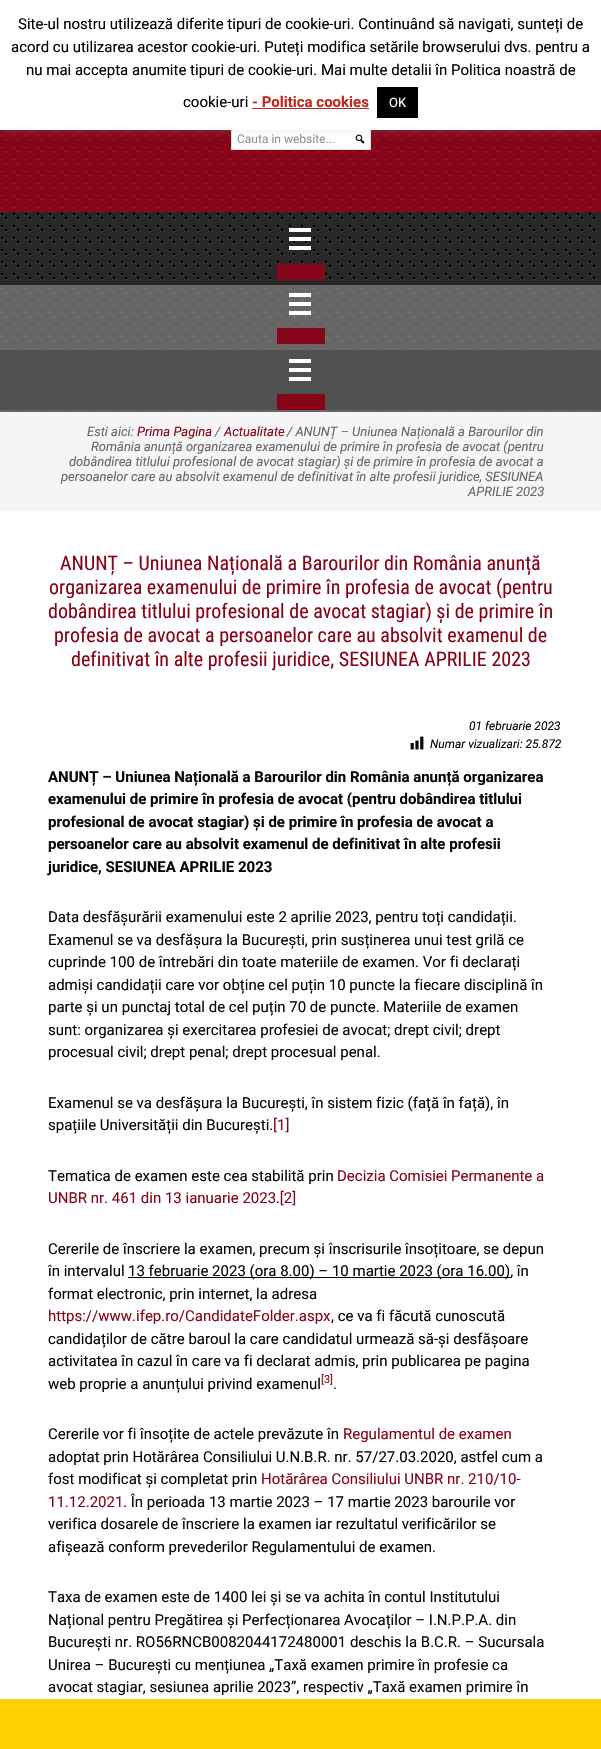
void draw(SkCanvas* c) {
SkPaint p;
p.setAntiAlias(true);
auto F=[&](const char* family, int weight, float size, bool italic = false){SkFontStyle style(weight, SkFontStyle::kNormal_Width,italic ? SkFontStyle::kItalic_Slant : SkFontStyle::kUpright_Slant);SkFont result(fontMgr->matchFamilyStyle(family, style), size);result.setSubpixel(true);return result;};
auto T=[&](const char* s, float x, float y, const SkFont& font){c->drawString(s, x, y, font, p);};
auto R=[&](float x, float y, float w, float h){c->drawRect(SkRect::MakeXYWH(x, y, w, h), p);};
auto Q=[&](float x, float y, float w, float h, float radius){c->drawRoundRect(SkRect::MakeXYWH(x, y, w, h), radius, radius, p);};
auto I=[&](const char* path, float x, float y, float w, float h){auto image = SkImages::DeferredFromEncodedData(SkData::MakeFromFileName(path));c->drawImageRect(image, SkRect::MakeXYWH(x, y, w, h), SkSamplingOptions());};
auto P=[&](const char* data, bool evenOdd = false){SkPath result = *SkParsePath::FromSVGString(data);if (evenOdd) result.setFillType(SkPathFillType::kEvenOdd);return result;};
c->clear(0xffffffff);
p.setColor(0xff860518);
R(0,130,601,82);
p.setStroke(true);
p.setStrokeWidth(3);
p.setStrokeCap(SkPaint::kRound_Cap);
p.setColor(0xff921e2f);
p.setPathEffect(SkDashPathEffect::Make({{0,12}}, 0));
c->drawPath(P("M2 135h588.2"),p);
p.setPathEffect(nullptr);
p.setPathEffect(SkDashPathEffect::Make({{0,12}}, 0));
c->drawPath(P("M6 139h588.2"),p);
p.setPathEffect(nullptr);
p.setStrokeWidth(2.6);
p.setColor(0xff7a0516);
p.setPathEffect(SkDashPathEffect::Make({{0,12}}, 0));
c->drawPath(P("M2 134h588.2"),p);
p.setPathEffect(nullptr);
p.setStrokeWidth(3);
p.setColor(0xff921e2f);
p.setPathEffect(SkDashPathEffect::Make({{0,12}}, 0));
c->drawPath(P("M2 147h588.2"),p);
p.setPathEffect(nullptr);
p.setStrokeWidth(2.6);
p.setColor(0xff7a0516);
p.setPathEffect(SkDashPathEffect::Make({{0,12}}, 0));
c->drawPath(P("M2 146h588.2"),p);
p.setPathEffect(nullptr);
p.setPathEffect(SkDashPathEffect::Make({{0,12}}, 0));
c->drawPath(P("M6 138h588.2"),p);
p.setPathEffect(nullptr);
p.setStrokeWidth(3);
p.setColor(0xff921e2f);
p.setPathEffect(SkDashPathEffect::Make({{0,12}}, 0));
c->drawPath(P("M6 151h588.2"),p);
p.setPathEffect(nullptr);
p.setStrokeWidth(2.6);
p.setColor(0xff7a0516);
p.setPathEffect(SkDashPathEffect::Make({{0,12}}, 0));
c->drawPath(P("M6 150h588.2"),p);
p.setPathEffect(nullptr);
p.setStroke(false);
p.setColor(0xffffffff);
R(232,130,138,19);
p.setStroke(true);
p.setStrokeWidth(1);
p.setStrokeCap(SkPaint::kButt_Cap);
p.setColor(0xffdddddd);
c->drawRect(SkRect::MakeXYWH(231.5,128.5,139,21),p);
I("1.png",355,134,10,10);
p.setStroke(false);
p.setColor(0x4dacabab);
p.setMaskFilter(SkMaskFilter::MakeBlur(kNormal_SkBlurStyle, 5));
c->drawRect(SkRect::MakeXYWH(0,-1,601,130),p);
p.setMaskFilter(nullptr);
p.setColor(0xffffffff);
R(0,0,601,130);
auto f1 = F("Roboto",400,15);
p.setColor(0xff000000);
T("Site-ul nostru utilizează diferite tipuri de cookie-uri. Continuând să navigati, sunteți de",18,29,f1);
T("acord cu utilizarea acestor cookie-uri. Puteți modifica setările browserului dvs. pentru a",11,52,f1);
T("nu mai accepta anumite tipuri de cookie-uri. Mai multe detalii în Politica noastră de",26,75,f1);
T("cookie-uri",183,107,f1);
auto f2 = F("Roboto",700,15);
p.setColor(0xffc3251d);
T("- Politica cookies",252,107,f2);
R(252,108,117,1);
p.setColor(0xff000000);
R(377,87,41,31);
auto f3 = F("Roboto",400,13);
p.setColor(0xffffffff);
T("OK",389,107,f3);
p.setStroke(true);
p.setStrokeWidth(3);
p.setStrokeCap(SkPaint::kRound_Cap);
p.setColor(0xff921e2f);
p.setPathEffect(SkDashPathEffect::Make({{0,12}}, 0));
c->drawPath(P("M2 159h588.2"),p);
p.setPathEffect(nullptr);
p.setPathEffect(SkDashPathEffect::Make({{0,12}}, 0));
c->drawPath(P("M2 171h588.2"),p);
p.setPathEffect(nullptr);
p.setPathEffect(SkDashPathEffect::Make({{0,12}}, 0));
c->drawPath(P("M2 183h588.2"),p);
p.setPathEffect(nullptr);
p.setPathEffect(SkDashPathEffect::Make({{0,12}}, 0));
c->drawPath(P("M2 195h588.2"),p);
p.setPathEffect(nullptr);
p.setPathEffect(SkDashPathEffect::Make({{0,12}}, 0));
c->drawPath(P("M2 207h588.2"),p);
p.setPathEffect(nullptr);
p.setPathEffect(SkDashPathEffect::Make({{0,12}}, 0));
c->drawPath(P("M6 163h588.2"),p);
p.setPathEffect(nullptr);
p.setPathEffect(SkDashPathEffect::Make({{0,12}}, 0));
c->drawPath(P("M6 175h588.2"),p);
p.setPathEffect(nullptr);
p.setPathEffect(SkDashPathEffect::Make({{0,12}}, 0));
c->drawPath(P("M6 187h588.2"),p);
p.setPathEffect(nullptr);
p.setPathEffect(SkDashPathEffect::Make({{0,12}}, 0));
c->drawPath(P("M6 199h588.2"),p);
p.setPathEffect(nullptr);
p.setPathEffect(SkDashPathEffect::Make({{0,12}}, 0));
c->drawPath(P("M6 211h588.2"),p);
p.setPathEffect(nullptr);
p.setStrokeWidth(2.6);
p.setColor(0xff7a0516);
p.setPathEffect(SkDashPathEffect::Make({{0,12}}, 0));
c->drawPath(P("M2 158h588.2"),p);
p.setPathEffect(nullptr);
p.setPathEffect(SkDashPathEffect::Make({{0,12}}, 0));
c->drawPath(P("M2 170h588.2"),p);
p.setPathEffect(nullptr);
p.setPathEffect(SkDashPathEffect::Make({{0,12}}, 0));
c->drawPath(P("M2 182h588.2"),p);
p.setPathEffect(nullptr);
p.setPathEffect(SkDashPathEffect::Make({{0,12}}, 0));
c->drawPath(P("M2 194h588.2"),p);
p.setPathEffect(nullptr);
p.setPathEffect(SkDashPathEffect::Make({{0,12}}, 0));
c->drawPath(P("M2 206h588.2"),p);
p.setPathEffect(nullptr);
p.setPathEffect(SkDashPathEffect::Make({{0,12}}, 0));
c->drawPath(P("M6 162h588.2"),p);
p.setPathEffect(nullptr);
p.setPathEffect(SkDashPathEffect::Make({{0,12}}, 0));
c->drawPath(P("M6 174h588.2"),p);
p.setPathEffect(nullptr);
p.setPathEffect(SkDashPathEffect::Make({{0,12}}, 0));
c->drawPath(P("M6 186h588.2"),p);
p.setPathEffect(nullptr);
p.setPathEffect(SkDashPathEffect::Make({{0,12}}, 0));
c->drawPath(P("M6 198h588.2"),p);
p.setPathEffect(nullptr);
p.setPathEffect(SkDashPathEffect::Make({{0,12}}, 0));
c->drawPath(P("M6 210h588.2"),p);
p.setPathEffect(nullptr);
auto f4 = F("Roboto",400,12);
p.setStroke(false);
p.setColor(0xff919191);
T("Cauta in website...",237,143,f4);
p.setColor(0xff282828);
R(0,212,601,73);
p.setStroke(true);
p.setStrokeWidth(3);
p.setColor(0xff3e3e3e);
p.setPathEffect(SkDashPathEffect::Make({{0,12}}, 0));
c->drawPath(P("M2 215h588.2"),p);
p.setPathEffect(nullptr);
p.setPathEffect(SkDashPathEffect::Make({{0,12}}, 0));
c->drawPath(P("M2 227h588.2"),p);
p.setPathEffect(nullptr);
p.setPathEffect(SkDashPathEffect::Make({{0,12}}, 0));
c->drawPath(P("M2 239h588.2"),p);
p.setPathEffect(nullptr);
p.setPathEffect(SkDashPathEffect::Make({{0,12}}, 0));
c->drawPath(P("M2 251h588.2"),p);
p.setPathEffect(nullptr);
p.setPathEffect(SkDashPathEffect::Make({{0,12}}, 0));
c->drawPath(P("M2 263h588.2"),p);
p.setPathEffect(nullptr);
p.setPathEffect(SkDashPathEffect::Make({{0,12}}, 0));
c->drawPath(P("M2 275h588.2"),p);
p.setPathEffect(nullptr);
p.setPathEffect(SkDashPathEffect::Make({{0,12}}, 0));
c->drawPath(P("M6 219h588.2"),p);
p.setPathEffect(nullptr);
p.setPathEffect(SkDashPathEffect::Make({{0,12}}, 0));
c->drawPath(P("M6 231h588.2"),p);
p.setPathEffect(nullptr);
p.setPathEffect(SkDashPathEffect::Make({{0,12}}, 0));
c->drawPath(P("M6 243h588.2"),p);
p.setPathEffect(nullptr);
p.setPathEffect(SkDashPathEffect::Make({{0,12}}, 0));
c->drawPath(P("M6 255h588.2"),p);
p.setPathEffect(nullptr);
p.setPathEffect(SkDashPathEffect::Make({{0,12}}, 0));
c->drawPath(P("M6 267h588.2"),p);
p.setPathEffect(nullptr);
p.setPathEffect(SkDashPathEffect::Make({{0,12}}, 0));
c->drawPath(P("M6 279h588.2"),p);
p.setPathEffect(nullptr);
p.setStrokeWidth(2.6);
p.setColor(0xff000000);
p.setPathEffect(SkDashPathEffect::Make({{0,12}}, 0));
c->drawPath(P("M2 214h588.2"),p);
p.setPathEffect(nullptr);
p.setPathEffect(SkDashPathEffect::Make({{0,12}}, 0));
c->drawPath(P("M2 226h588.2"),p);
p.setPathEffect(nullptr);
p.setPathEffect(SkDashPathEffect::Make({{0,12}}, 0));
c->drawPath(P("M2 238h588.2"),p);
p.setPathEffect(nullptr);
p.setPathEffect(SkDashPathEffect::Make({{0,12}}, 0));
c->drawPath(P("M2 250h588.2"),p);
p.setPathEffect(nullptr);
p.setPathEffect(SkDashPathEffect::Make({{0,12}}, 0));
c->drawPath(P("M2 262h588.2"),p);
p.setPathEffect(nullptr);
p.setPathEffect(SkDashPathEffect::Make({{0,12}}, 0));
c->drawPath(P("M2 274h588.2"),p);
p.setPathEffect(nullptr);
p.setPathEffect(SkDashPathEffect::Make({{0,12}}, 0));
c->drawPath(P("M6 218h588.2"),p);
p.setPathEffect(nullptr);
p.setPathEffect(SkDashPathEffect::Make({{0,12}}, 0));
c->drawPath(P("M6 230h588.2"),p);
p.setPathEffect(nullptr);
p.setPathEffect(SkDashPathEffect::Make({{0,12}}, 0));
c->drawPath(P("M6 242h588.2"),p);
p.setPathEffect(nullptr);
p.setPathEffect(SkDashPathEffect::Make({{0,12}}, 0));
c->drawPath(P("M6 254h588.2"),p);
p.setPathEffect(nullptr);
p.setPathEffect(SkDashPathEffect::Make({{0,12}}, 0));
c->drawPath(P("M6 266h588.2"),p);
p.setPathEffect(nullptr);
p.setPathEffect(SkDashPathEffect::Make({{0,12}}, 0));
c->drawPath(P("M6 278h588.2"),p);
p.setPathEffect(nullptr);
p.setStroke(false);
p.setColor(0xffffffff);
R(289,228,22,4);
R(289,237,22,4);
R(289,246,22,4);
p.setColor(0xff860518);
R(277,264,48,16);
p.setColor(0xff666666);
R(0,285,601,127);
p.setStroke(true);
p.setStrokeWidth(3);
p.setColor(0xff757575);
p.setPathEffect(SkDashPathEffect::Make({{0,12}}, 0));
c->drawPath(P("M2 288h588.2"),p);
p.setPathEffect(nullptr);
p.setPathEffect(SkDashPathEffect::Make({{0,12}}, 0));
c->drawPath(P("M2 300h588.2"),p);
p.setPathEffect(nullptr);
p.setPathEffect(SkDashPathEffect::Make({{0,12}}, 0));
c->drawPath(P("M2 312h588.2"),p);
p.setPathEffect(nullptr);
p.setPathEffect(SkDashPathEffect::Make({{0,12}}, 0));
c->drawPath(P("M2 324h588.2"),p);
p.setPathEffect(nullptr);
p.setPathEffect(SkDashPathEffect::Make({{0,12}}, 0));
c->drawPath(P("M2 336h588.2"),p);
p.setPathEffect(nullptr);
p.setPathEffect(SkDashPathEffect::Make({{0,12}}, 0));
c->drawPath(P("M6 292h588.2"),p);
p.setPathEffect(nullptr);
p.setPathEffect(SkDashPathEffect::Make({{0,12}}, 0));
c->drawPath(P("M6 304h588.2"),p);
p.setPathEffect(nullptr);
p.setPathEffect(SkDashPathEffect::Make({{0,12}}, 0));
c->drawPath(P("M6 316h588.2"),p);
p.setPathEffect(nullptr);
p.setPathEffect(SkDashPathEffect::Make({{0,12}}, 0));
c->drawPath(P("M6 328h588.2"),p);
p.setPathEffect(nullptr);
p.setPathEffect(SkDashPathEffect::Make({{0,12}}, 0));
c->drawPath(P("M6 340h588.2"),p);
p.setPathEffect(nullptr);
p.setStrokeWidth(2.6);
p.setColor(0xff666666);
p.setPathEffect(SkDashPathEffect::Make({{0,12}}, 0));
c->drawPath(P("M2 287h588.2"),p);
p.setPathEffect(nullptr);
p.setPathEffect(SkDashPathEffect::Make({{0,12}}, 0));
c->drawPath(P("M2 299h588.2"),p);
p.setPathEffect(nullptr);
p.setPathEffect(SkDashPathEffect::Make({{0,12}}, 0));
c->drawPath(P("M2 311h588.2"),p);
p.setPathEffect(nullptr);
p.setPathEffect(SkDashPathEffect::Make({{0,12}}, 0));
c->drawPath(P("M2 323h588.2"),p);
p.setPathEffect(nullptr);
p.setPathEffect(SkDashPathEffect::Make({{0,12}}, 0));
c->drawPath(P("M2 335h588.2"),p);
p.setPathEffect(nullptr);
p.setPathEffect(SkDashPathEffect::Make({{0,12}}, 0));
c->drawPath(P("M6 291h588.2"),p);
p.setPathEffect(nullptr);
p.setPathEffect(SkDashPathEffect::Make({{0,12}}, 0));
c->drawPath(P("M6 303h588.2"),p);
p.setPathEffect(nullptr);
p.setPathEffect(SkDashPathEffect::Make({{0,12}}, 0));
c->drawPath(P("M6 315h588.2"),p);
p.setPathEffect(nullptr);
p.setPathEffect(SkDashPathEffect::Make({{0,12}}, 0));
c->drawPath(P("M6 327h588.2"),p);
p.setPathEffect(nullptr);
p.setPathEffect(SkDashPathEffect::Make({{0,12}}, 0));
c->drawPath(P("M6 339h588.2"),p);
p.setPathEffect(nullptr);
p.setStroke(false);
p.setColor(0xffffffff);
R(289,293,22,4);
R(289,302,22,4);
R(289,311,22,4);
p.setColor(0xff860518);
R(277,328,48,16);
p.setStroke(true);
p.setStrokeWidth(3);
p.setColor(0xff757575);
p.setPathEffect(SkDashPathEffect::Make({{0,12}}, 0));
c->drawPath(P("M2 349h588.2"),p);
p.setPathEffect(nullptr);
p.setPathEffect(SkDashPathEffect::Make({{0,12}}, 0));
c->drawPath(P("M2 409h588.2"),p);
p.setPathEffect(nullptr);
p.setStrokeWidth(2.6);
p.setColor(0xff666666);
p.setPathEffect(SkDashPathEffect::Make({{0,12}}, 0));
c->drawPath(P("M2 348h588.2"),p);
p.setPathEffect(nullptr);
p.setPathEffect(SkDashPathEffect::Make({{0,12}}, 0));
c->drawPath(P("M6 412h588.2"),p);
p.setPathEffect(nullptr);
p.setStroke(false);
p.setColor(0xff505050);
R(0,350,601,60);
p.setColor(0xffffffff);
R(289,359,22,4);
R(289,368,22,4);
R(289,377,22,4);
p.setColor(0xff860518);
R(277,394,48,16);
p.setColor(0xfff5f5f5);
Q(0,412,601,99,2.5);
auto f5 = F("Roboto",400,13,true);
p.setColor(0xff666666);
T("Esti aici:",87,436,f5);
p.setColor(0xff860518);
T("Prima Pagina",137,436,f5);
p.setColor(0xff666666);
T("/",215,436,f5);
p.setColor(0xff860518);
T("Actualitate",224,436,f5);
p.setColor(0xff666666);
T("/ ANUNȚ – Uniunea Națională a Barourilor din",287,436,f5);
T("România anunță organizarea examenului de primire în profesia de avocat (pentru",91,451,f5);
T("dobândirea titlului profesional de avocat stagiar) și de primire în profesia de avocat a",69,466,f5);
T("persoanelor care au absolvit examenul de definitivat în alte profesii juridice, SESIUNEA",61,481,f5);
T("APRILIE 2023",468,496,f5);
auto f6 = F("Roboto Condensed",400,20);
p.setColor(0xff860518);
T("ANUNȚ – Uniunea Națională a Barourilor din România anunță",60,570,f6);
T("organizarea examenului de primire în profesia de avocat (pentru",49,594,f6);
T("dobândirea titlului profesional de avocat stagiar) și de primire în",48,618,f6);
T("profesia de avocat a persoanelor care au absolvit examenul de",54,642,f6);
T("definitivat în alte profesii juridice, SESIUNEA APRILIE 2023",71,666,f6);
auto f7 = F("Roboto",400,12,true);
p.setColor(0xff050708);
T("01 februarie 2023",469,730,f7);
I("2.png",410,736,14,14);
T("Numar vizualizari: 25.872",430,748,f7);
T("ANUNȚ – Uniunea Națională a Barourilor din România anunță organizarea",48,782,f2);
T("examenului de primire în profesia de avocat (pentru dobândirea titlului",48,804,f2);
T("profesional de avocat stagiar) și de primire în profesia de avocat a",48,827,f2);
T("persoanelor care au absolvit examenul de definitivat în alte profesii",48,849,f2);
T("juridice, SESIUNEA APRILIE 2023",48,872,f2);
T("Data desfășurării examenului este 2 aprilie 2023, pentru toți candidații.",48,922,f1);
T("Examenul se va desfășura la București, prin susținerea unui test grilă ce",48,945,f1);
T("cuprinde 100 de întrebări din toate materiile de examen. Vor fi declarați",48,967,f1);
T("admiși candidații care vor obține cel puțin 10 puncte la fiecare disciplină în",48,990,f1);
T("parte și un punctaj total de cel puțin 70 de puncte. Materiile de examen",48,1012,f1);
T("sunt: organizarea și exercitarea profesiei de avocat; drept civil; drept",48,1035,f1);
T("procesual civil; drept penal; drept procesual penal.",48,1057,f1);
T("Examenul se va desfășura la București, în sistem fizic (față în față), în",48,1108,f1);
T("spațiile Universității din București.",48,1130,f1);
p.setColor(0xff860518);
T("[1]",273,1130,f1);
p.setColor(0xff050708);
T("Tematica de examen este cea stabilită prin",48,1181,f1);
p.setColor(0xff860518);
T("Decizia Comisiei Permanente a",337,1181,f1);
T("UNBR nr. 461 din 13 ianuarie 2023 [2]",48,1203,f1);
p.setColor(0xff050708);
T(".",276,1203,f1);
T("Cererile de înscriere la examen, precum și înscrisurile însoțitoare, se depun",48,1254,f1);
T("în intervalul",48,1276,f1);
R(128,1277,383,1);
T("13 februarie 2023 (ora 8.00) – 10 martie 2023 (ora 16.00), în",128,1276,f1);
T("format electronic, prin internet, la adresa",48,1299,f1);
p.setColor(0xff860518);
T("https://www.ifep.ro/CandidateFolder.aspx",48,1321,f1);
p.setColor(0xff050708);
T(", ce va fi făcută cunoscută",331,1321,f1);
T("candidaților de către baroul la care candidatul urmează să-și desfășoare",48,1344,f1);
T("activitatea în cazul în care va fi declarat admis, prin publicarea pe pagina",48,1366,f1);
T("web proprie a anunțului privind examenul",48,1389,f1);
auto f8 = F("Roboto",400,11);
p.setColor(0xff860518);
T("[3]",321,1383,f8);
p.setColor(0xff050708);
T(".",333,1389,f1);
T("Cererile vor fi însoțite de actele prevăzute în",48,1439,f1);
p.setColor(0xff860518);
T("Regulamentul de examen",343,1439,f1);
p.setColor(0xff050708);
T("adoptat prin Hotărârea Consiliului U.N.B.R. nr. 57/27.03.2020, astfel cum a",48,1462,f1);
T("fost modificat și completat prin",48,1484,f1);
p.setColor(0xff860518);
T("Hotărârea Consiliului UNBR nr. 210/10-",261,1484,f1);
T("11.12.2021",48,1507,f1);
p.setColor(0xff050708);
T(". În perioada 13 martie 2023 – 17 martie 2023 barourile vor",123,1507,f1);
T("verifica dosarele de înscriere la examen iar rezultatul verificărilor se",48,1529,f1);
T("afișează conform prevederilor Regulamentului de examen.",48,1552,f1);
T("Taxa de examen este de 1400 lei și se va achita în contul Institutului",48,1602,f1);
T("Național pentru Pregătirea și Perfecționarea Avocaților – I.N.P.P.A. din",48,1625,f1);
T("București nr. RO56RNCB0082044172480001 deschis la B.C.R. – Sucursala",48,1647,f1);
T("Unirea – București cu mențiunea „Taxă examen primire în profesie ca",48,1670,f1);
T("avocat stagiar, sesiunea aprilie 2023”, respectiv „Taxă examen primire în",48,1692,f1);
p.setColor(0xffffd000);
R(0,1699,601,50);
}
